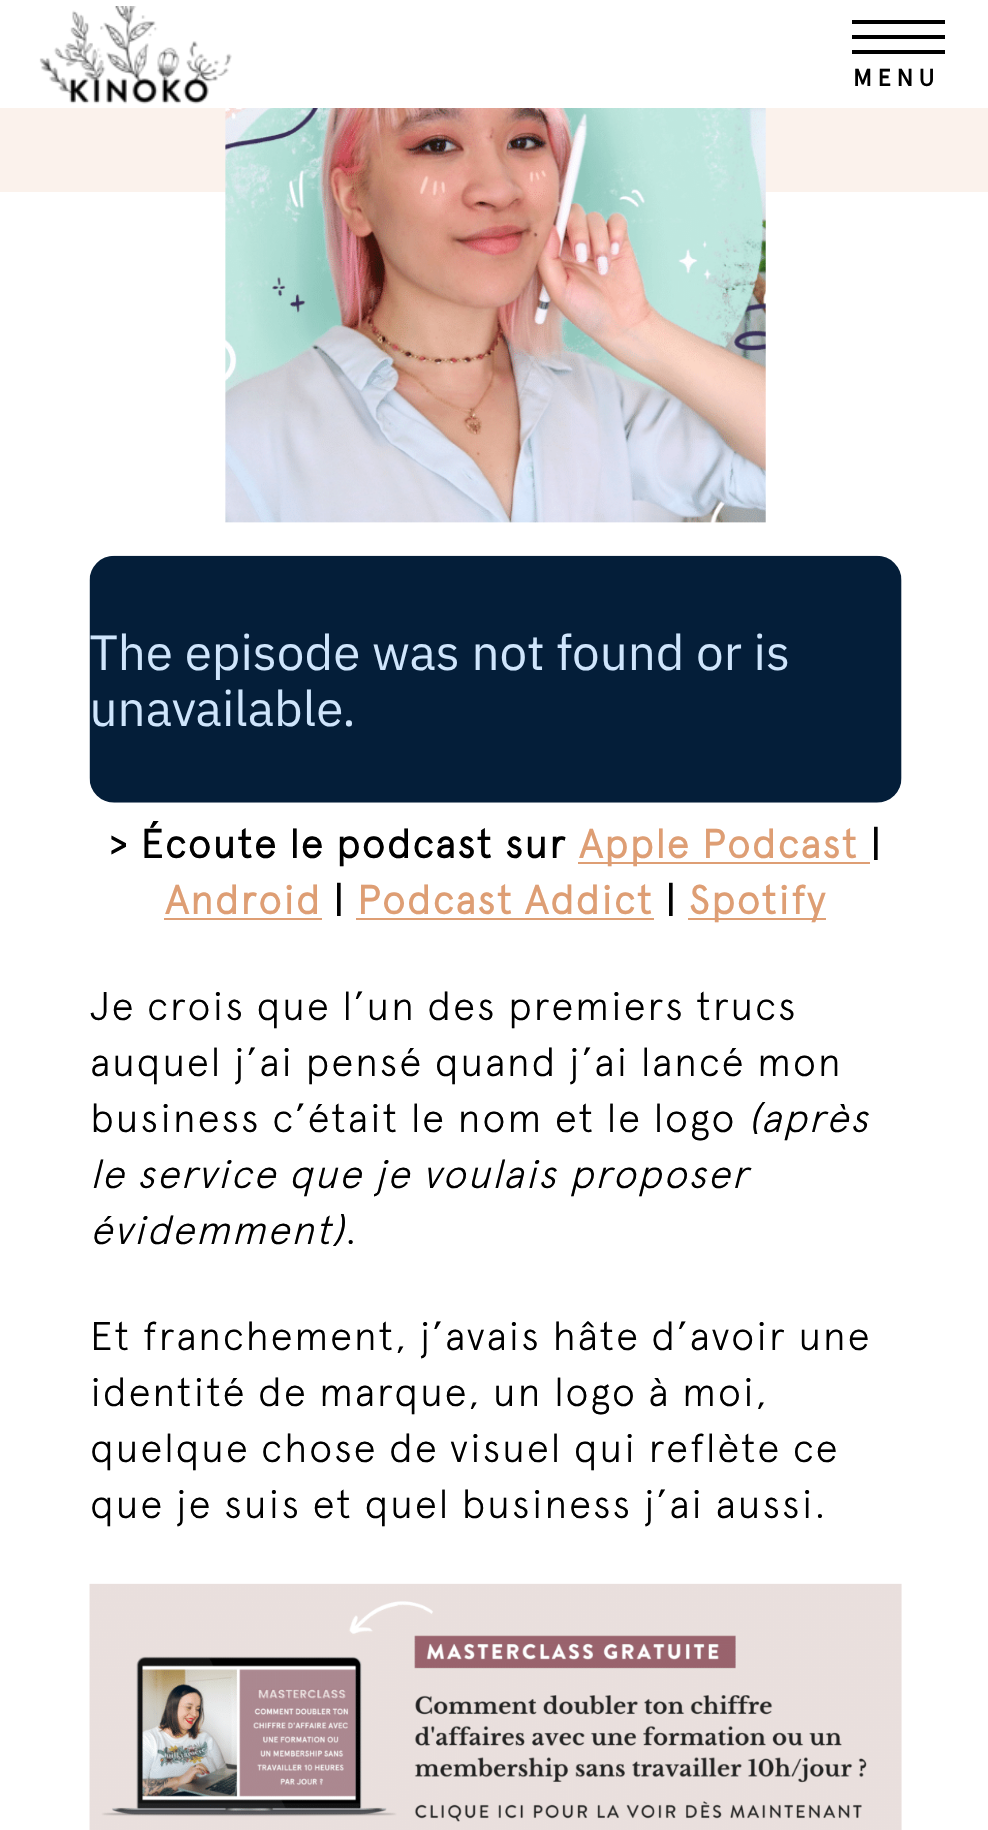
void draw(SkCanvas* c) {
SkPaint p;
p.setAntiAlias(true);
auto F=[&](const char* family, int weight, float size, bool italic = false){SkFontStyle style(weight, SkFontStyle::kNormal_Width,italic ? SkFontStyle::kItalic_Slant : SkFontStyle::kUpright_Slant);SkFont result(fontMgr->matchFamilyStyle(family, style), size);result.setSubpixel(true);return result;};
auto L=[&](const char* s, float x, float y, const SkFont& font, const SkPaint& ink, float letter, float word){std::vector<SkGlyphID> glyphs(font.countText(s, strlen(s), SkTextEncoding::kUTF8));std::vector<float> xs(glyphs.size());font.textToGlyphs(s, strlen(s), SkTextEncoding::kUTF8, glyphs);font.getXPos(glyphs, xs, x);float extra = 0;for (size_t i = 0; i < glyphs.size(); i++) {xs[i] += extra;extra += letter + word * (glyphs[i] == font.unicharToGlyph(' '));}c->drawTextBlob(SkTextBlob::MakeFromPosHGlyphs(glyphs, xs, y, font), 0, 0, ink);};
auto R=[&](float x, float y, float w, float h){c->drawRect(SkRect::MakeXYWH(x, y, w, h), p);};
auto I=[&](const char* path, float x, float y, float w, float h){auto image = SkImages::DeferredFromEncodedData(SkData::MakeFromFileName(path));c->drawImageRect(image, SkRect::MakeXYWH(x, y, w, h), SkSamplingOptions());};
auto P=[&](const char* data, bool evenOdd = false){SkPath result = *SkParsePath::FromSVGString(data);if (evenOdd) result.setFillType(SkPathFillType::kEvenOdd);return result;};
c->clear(0xffffffff);
I("1.png",39,6,193,98);
p.setColor(0xff000000);
c->drawPath(P("M852 50h93v4h-93zm0-15h93v4h-93zm0-15h93v4h-93z"),p);
auto f1 = F("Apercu",500,24.5);
L("MENU",853,86,f1,p,5,0);
p.setColor(0xfffbf2ec);
R(0,108,988,84);
I("2.png",225,108,541,415);
I("3.png",89,555,813,248);
auto f2 = F("Apercu",700,40.1);
p.setColor(0xff000000);
L("> Écoute le podcast sur",109,858,f2,p,1.6,0);
p.setColor(0xffde9e74);
R(578,862,292,2);
L("Apple Podcast",579,858,f2,p,1.6,0);
p.setColor(0xff000000);
L("|",870,858,f2,p,1.6,0);
p.setColor(0xffde9e74);
L("Android",165,914,f2,p,1.6,0);
R(164,918,158,2);
p.setColor(0xff000000);
L("|",333,914,f2,p,1.6,0);
p.setColor(0xffde9e74);
L("Podcast Addict",357,914,f2,p,1.6,0);
R(356,918,298,2);
p.setColor(0xff000000);
L("|",665,914,f2,p,1.6,0);
p.setColor(0xffde9e74);
R(688,918,138,2);
L("Spotify",689,914,f2,p,1.6,0);
auto f3 = F("Apercu",300,40.1);
p.setColor(0xff000000);
L("Je crois que l’un des premiers trucs",90,1020,f3,p,1.6,0);
L("auquel j’ai pensé quand j’ai lancé mon",90,1076,f3,p,1.6,0);
L("business c’était le nom et le logo",90,1132,f3,p,1.6,0);
auto f4 = F("Apercu",300,40.1,true);
L("(après",748,1132,f4,p,1.6,0);
L("le service que je voulais proposer",90,1188,f4,p,1.6,0);
L("évidemment)",90,1244,f4,p,1.6,0);
L(".",345,1244,f3,p,1.6,0);
L("Et franchement, j’avais hâte d’avoir une",90,1350,f3,p,1.6,0);
L("identité de marque, un logo à moi,",90,1406,f3,p,1.6,0);
L("quelque chose de visuel qui reflète ce",90,1462,f3,p,1.6,0);
L("que je suis et quel business j’ai aussi.",90,1518,f3,p,1.6,0);
I("4.png",89,1583,813,247);
}
